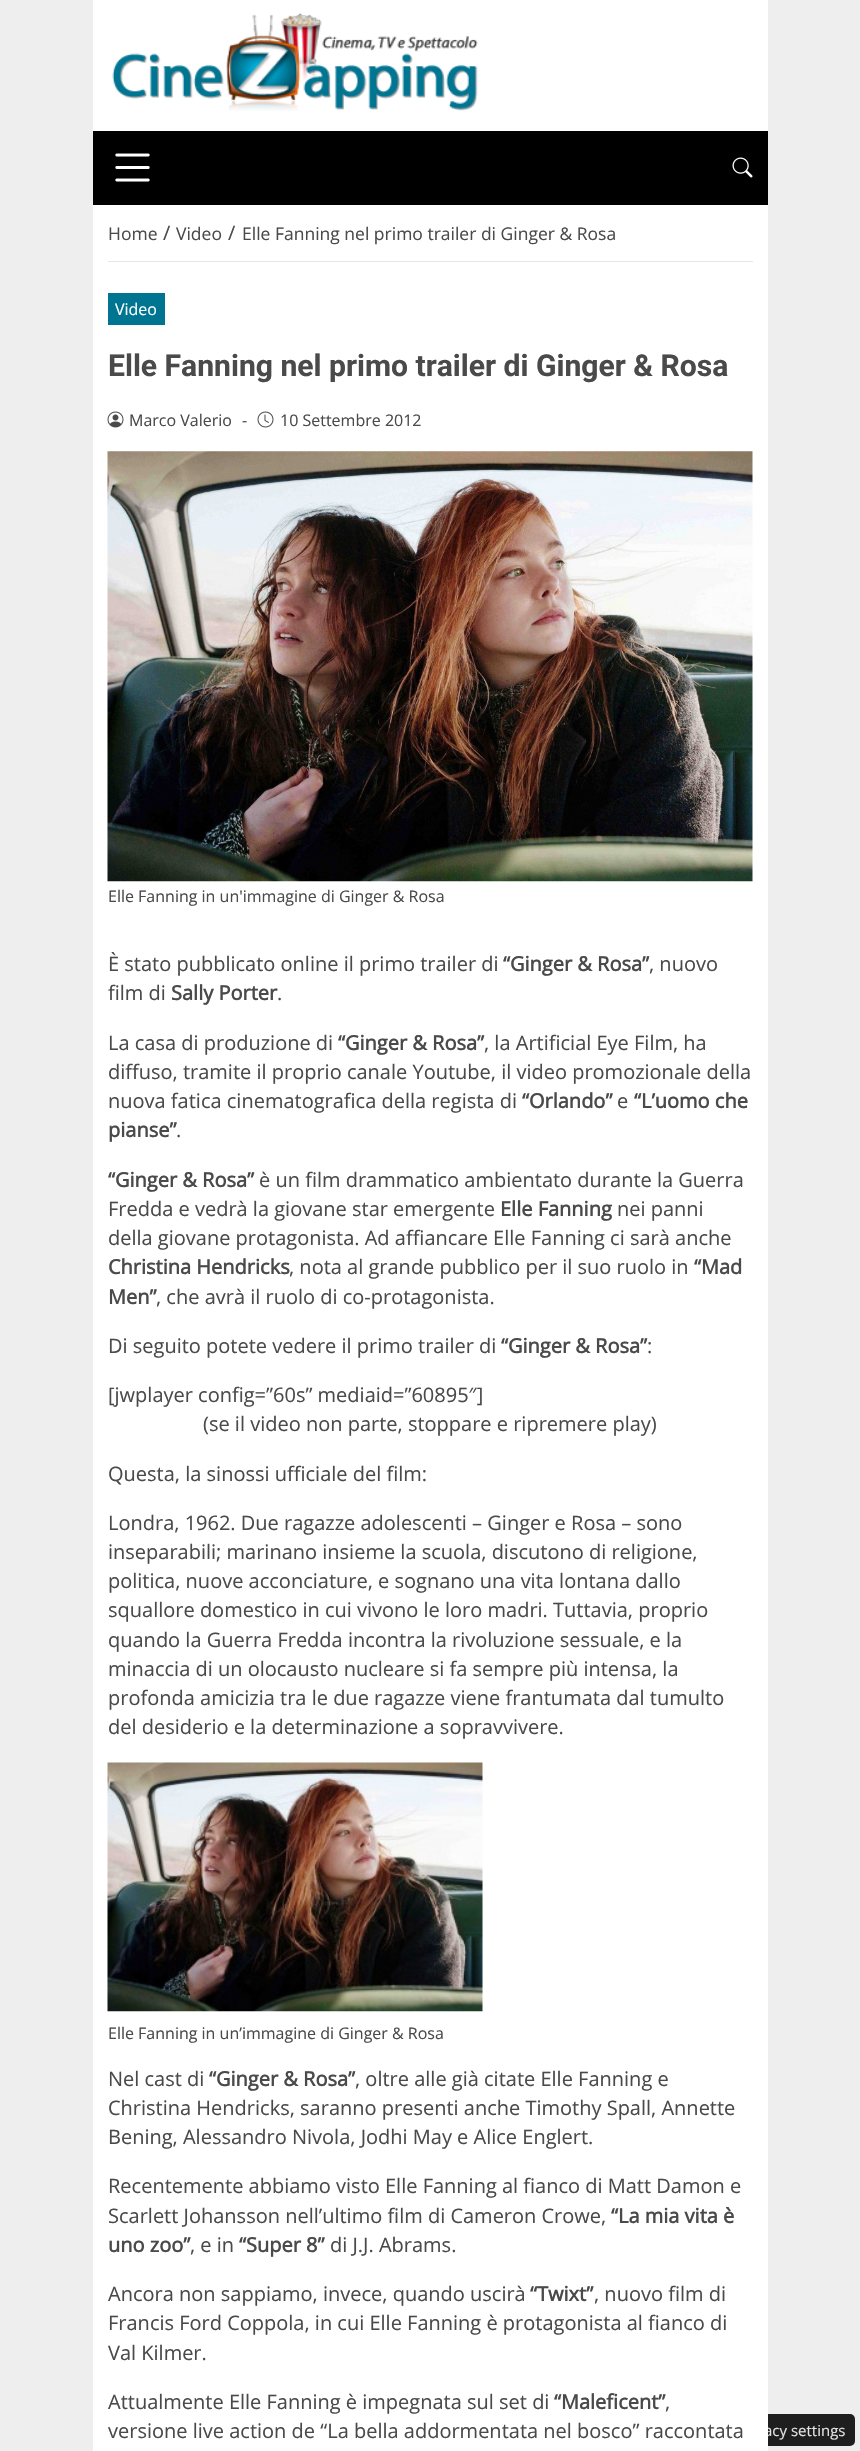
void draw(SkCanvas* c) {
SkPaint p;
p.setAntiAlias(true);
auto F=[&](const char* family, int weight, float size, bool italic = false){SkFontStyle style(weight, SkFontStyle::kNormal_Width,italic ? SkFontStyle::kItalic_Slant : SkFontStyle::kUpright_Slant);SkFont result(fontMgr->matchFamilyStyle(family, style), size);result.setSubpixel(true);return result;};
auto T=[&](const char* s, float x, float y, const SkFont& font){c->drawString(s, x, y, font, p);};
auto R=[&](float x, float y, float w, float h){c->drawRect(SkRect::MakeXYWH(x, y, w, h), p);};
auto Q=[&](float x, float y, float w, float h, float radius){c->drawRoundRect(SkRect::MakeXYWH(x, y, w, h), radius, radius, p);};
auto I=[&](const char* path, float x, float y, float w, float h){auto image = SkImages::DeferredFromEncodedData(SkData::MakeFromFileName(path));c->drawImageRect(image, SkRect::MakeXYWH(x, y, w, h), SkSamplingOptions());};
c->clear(0xffeeeeee);
p.setColor(0xffffffff);
R(93,0,675,131);
I("1.png",112,13,366,98);
p.setColor(0xff000000);
R(93,131,675,74);
I("2.png",115,153,35,29);
I("3.png",732,157,21,21);
p.setColor(0xff1e1e1e);
Q(670,2414,185,32,5);
auto f1 = F("Open Sans",400,15);
p.setColor(0xffe3e1e1);
T("acy settings",764,2436,f1);
p.setColor(0xffffffff);
R(93,205,675,2246);
p.setColor(0xffe6e6e6);
R(108,261,645,1);
auto f2 = F("Open Sans",400,17.5);
p.setColor(0xff4a4a4a);
T("Home",108,240,f2);
auto f3 = F("Open Sans",400,20);
T("/",163,240,f3);
T("Video",176,240,f2);
T("/",228,240,f3);
T("Elle Fanning nel primo trailer di Ginger & Rosa",242,240,f2);
p.setColor(0xff007592);
R(108,293,57,32);
auto f4 = F("Open Sans",400,16);
p.setColor(0xffffffff);
T("Video",115,315,f4);
auto f5 = F("Roboto",700,30.1);
p.setColor(0xff4a4a4a);
T("Elle Fanning nel primo trailer di Ginger & Rosa",108,376,f5);
I("4.png",107,411,17,17);
T("Marco Valerio",129,426,f4);
T("-",242,426,f4);
I("5.png",257,411,17,17);
T("10 Settembre 2012",280,426,f4);
I("6.png",107,451,646,431);
T("Elle Fanning in un'immagine di Ginger & Rosa",108,902,f4);
T("È stato pubblicato online il primo trailer di",108,971,f3);
auto f6 = F("Open Sans",700,20);
T("“Ginger & Rosa”",503,971,f6);
T(", nuovo",649,971,f3);
T("film di",108,1000,f3);
T("Sally Porter",171,1000,f6);
T(".",277,1000,f3);
T("La casa di produzione di",108,1050,f3);
T("“Ginger & Rosa”",338,1050,f6);
T(", la Artificial Eye Film, ha",484,1050,f3);
T("diffuso, tramite il proprio canale Youtube, il video promozionale della",108,1079,f3);
T("nuova fatica cinematografica della regista di",108,1108,f3);
T("“Orlando”",522,1108,f6);
T("e",617,1108,f3);
T("“L’uomo che",634,1108,f6);
T("pianse”",108,1137,f6);
T(".",176,1137,f3);
T("“Ginger & Rosa”",108,1187,f6);
T("è un film drammatico ambientato durante la Guerra",259,1187,f3);
T("Fredda e vedrà la giovane star emergente",108,1216,f3);
T("Elle Fanning",500,1216,f6);
T("nei panni",617,1216,f3);
T("della giovane protagonista. Ad affiancare Elle Fanning ci sarà anche",108,1245,f3);
T("Christina Hendricks",108,1274,f6);
T(", nota al grande pubblico per il suo ruolo in",289,1274,f3);
T("“Mad",694,1274,f6);
T("Men”",108,1304,f6);
T(", che avrà il ruolo di co-protagonista.",156,1304,f3);
T("Di seguito potete vedere il primo trailer di",108,1353,f3);
T("“Ginger & Rosa”",501,1353,f6);
T(":",647,1353,f3);
T("[jwplayer config=”60s” mediaid=”60895″]",108,1402,f3);
T("(se il video non parte, stoppare e ripremere play)",203,1431,f3);
T("Questa, la sinossi ufficiale del film:",108,1481,f3);
T("Londra, 1962. Due ragazze adolescenti – Ginger e Rosa – sono",108,1530,f3);
T("inseparabili; marinano insieme la scuola, discutono di religione,",108,1559,f3);
T("politica, nuove acconciature, e sognano una vita lontana dallo",108,1588,f3);
T("squallore domestico in cui vivono le loro madri. Tuttavia, proprio",108,1617,f3);
T("quando la Guerra Fredda incontra la rivoluzione sessuale, e la",108,1647,f3);
T("minaccia di un olocausto nucleare si fa sempre più intensa, la",108,1676,f3);
T("profonda amicizia tra le due ragazze viene frantumata dal tumulto",108,1705,f3);
T("del desiderio e la determinazione a sopravvivere.",108,1734,f3);
I("7.png",107,1762,376,250);
T("Elle Fanning in un’immagine di Ginger & Rosa",108,2039,f4);
T("Nel cast di",108,2086,f3);
T("“Ginger & Rosa”",209,2086,f6);
T(", oltre alle già citate Elle Fanning e",355,2086,f3);
T("Christina Hendricks, saranno presenti anche Timothy Spall, Annette",108,2115,f3);
T("Bening, Alessandro Nivola, Jodhi May e Alice Englert.",108,2144,f3);
T("Recentemente abbiamo visto Elle Fanning al fianco di Matt Damon e",108,2193,f3);
T("Scarlett Johansson nell’ultimo film di Cameron Crowe,",108,2223,f3);
T("“La mia vita è",611,2223,f6);
T("uno zoo”",108,2252,f6);
T(", e in",190,2252,f3);
T("“Super 8”",239,2252,f6);
T("di J.J. Abrams.",330,2252,f3);
T("Ancora non sappiamo, invece, quando uscirà",108,2301,f3);
T("“Twixt”",530,2301,f6);
T(", nuovo film di",594,2301,f3);
T("Francis Ford Coppola, in cui Elle Fanning è protagonista al fianco di",108,2330,f3);
T("Val Kilmer.",108,2360,f3);
T("Attualmente Elle Fanning è impegnata sul set di",108,2409,f3);
T("“Maleficent”",554,2409,f6);
T(",",665,2409,f3);
T("versione live action de “La bella addormentata nel bosco” raccontata",108,2438,f3);
}
